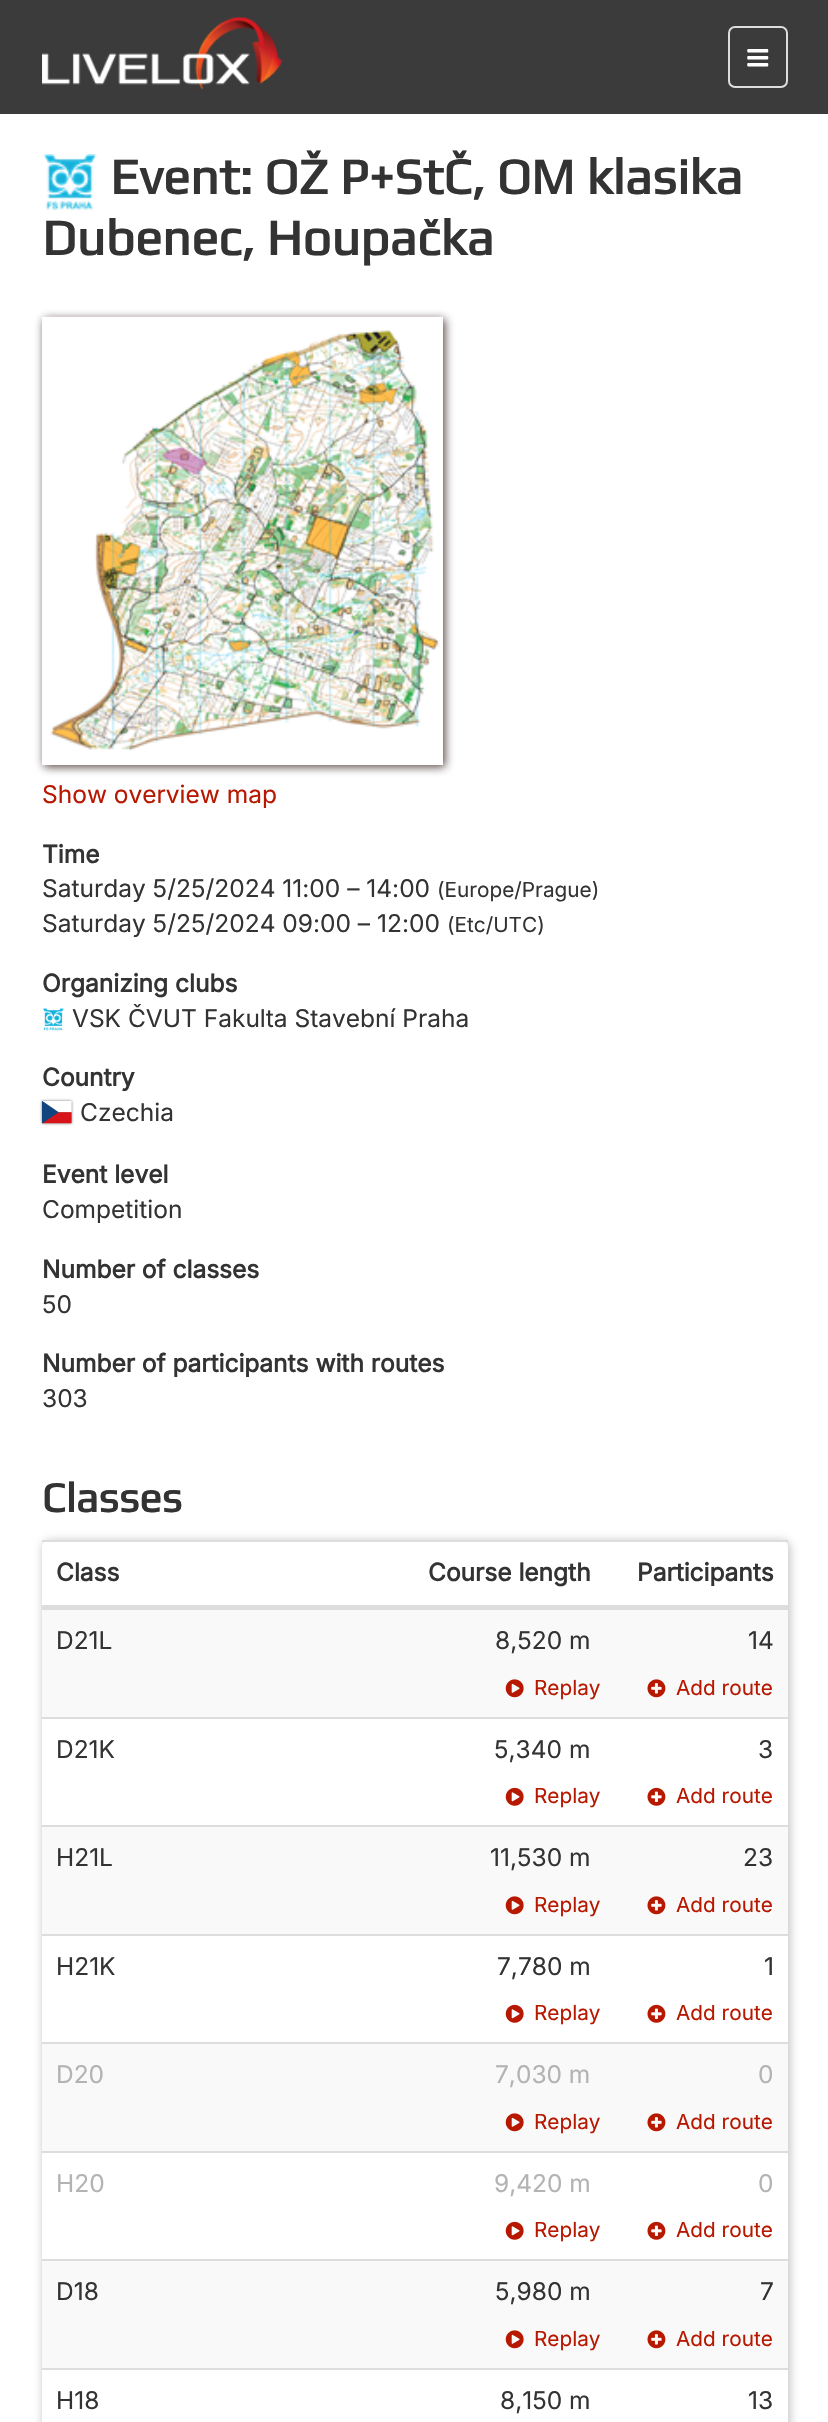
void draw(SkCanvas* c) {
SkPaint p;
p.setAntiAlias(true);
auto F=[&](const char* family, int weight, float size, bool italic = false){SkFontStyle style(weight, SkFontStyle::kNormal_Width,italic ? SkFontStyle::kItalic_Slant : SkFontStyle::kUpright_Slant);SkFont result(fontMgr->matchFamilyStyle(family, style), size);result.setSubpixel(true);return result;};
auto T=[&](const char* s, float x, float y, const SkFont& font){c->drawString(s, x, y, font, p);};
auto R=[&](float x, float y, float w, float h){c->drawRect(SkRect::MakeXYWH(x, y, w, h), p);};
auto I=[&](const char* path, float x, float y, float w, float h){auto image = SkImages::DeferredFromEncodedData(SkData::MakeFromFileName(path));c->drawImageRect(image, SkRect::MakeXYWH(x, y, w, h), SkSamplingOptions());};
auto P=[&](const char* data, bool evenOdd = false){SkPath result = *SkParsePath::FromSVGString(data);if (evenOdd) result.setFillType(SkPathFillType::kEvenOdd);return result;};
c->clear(0xffffffff);
p.setColor(0xff3b3b3b);
R(0,0,828,114);
I("1.png",42,17,240,73);
p.setStroke(true);
p.setStrokeWidth(2);
p.setColor(0xffdddddd);
c->drawRoundRect(SkRect::MakeXYWH(729,27,58,60),6,6,p);
I("2.png",747,49,22,18);
I("3.png",43,154,54,56);
auto f1 = F("Play",700,50.75);
p.setStroke(false);
p.setColor(0xff333333);
T("Event: OŽ P+StČ, OM klasika",110,194,f1);
T("Dubenec, Houpačka",42,255,f1);
c->save();
c->clipPath(P("M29 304h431v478h-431zm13 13h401v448h-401z",true),true);
p.setColor(0xbf1a0603);
p.setMaskFilter(SkMaskFilter::MakeBlur(kNormal_SkBlurStyle, 4.5));
c->drawRect(SkRect::MakeXYWH(44,319,401,448),p);
p.setMaskFilter(nullptr);
c->restore();
I("4.png",42,316,401,449);
auto f2 = F("Inter",400,24.5);
p.setColor(0xffb71800);
T("Show overview map",42,803,f2);
auto f3 = F("Inter",700,24.5);
p.setColor(0xff333333);
T("Time",42,863,f3);
T("Saturday 5/25/2024 11:00 – 14:00",42,897,f2);
auto f4 = F("Inter",400,20.75);
T("(Europe/Prague)",437,897,f4);
T("Saturday 5/25/2024 09:00 – 12:00",42,932,f2);
T("(Etc/UTC)",447,932,f4);
T("Organizing clubs",42,992,f3);
I("5.png",42,1008,22,23);
T("VSK ČVUT Fakulta Stavební Praha",72,1027,f2);
T("Country",42,1086,f3);
I("6.png",39,1098,35,28);
T("Czechia",80,1121,f2);
T("Event level",42,1183,f3);
T("Competition",42,1218,f2);
T("Number of classes",42,1278,f3);
T("50",42,1313,f2);
T("Number of participants with routes",42,1372,f3);
T("303",42,1407,f2);
auto f5 = F("Play",700,42);
T("Classes",42,1512,f5);
c->save();
c->clipPath(P("M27 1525h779v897h-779zm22 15h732c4 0 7 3 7 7v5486h-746v-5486c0-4 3-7 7-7z",true),true);
p.setColor(0x33000000);
p.setMaskFilter(SkMaskFilter::MakeBlur(kNormal_SkBlurStyle, 4.5));
c->drawRoundRect(SkRect::MakeXYWH(42,1540,749,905),9,9,p);
p.setMaskFilter(nullptr);
c->restore();
p.setColor(0xffdddddd);
R(42,1540,746,2);
R(42,1605,746,5);
p.setColor(0xff333333);
T("Class",56,1581,f3);
T("Course length",428,1581,f3);
T("Participants",637,1581,f3);
p.setColor(0xfff9f9f9);
R(42,1610,746,107);
p.setColor(0xff333333);
T("D21L",56,1649,f2);
T("8,520 m",495,1649,f2);
T("14",748,1649,f2);
I("7.png",505,1679,19,19);
p.setColor(0xffb71800);
T("Replay",534,1695,f4);
I("8.png",647,1679,19,19);
T("Add route",676,1695,f4);
p.setColor(0xffdddddd);
R(42,1717,746,2);
p.setColor(0xff333333);
T("D21K",56,1758,f2);
T("5,340 m",494,1758,f2);
T("3",758,1758,f2);
I("9.png",505,1787,19,19);
p.setColor(0xffb71800);
T("Replay",534,1803,f4);
I("10.png",647,1787,19,19);
T("Add route",676,1803,f4);
p.setColor(0xfff9f9f9);
R(42,1827,746,107);
p.setColor(0xffdddddd);
R(42,1825,746,2);
p.setColor(0xff333333);
T("H21L",56,1866,f2);
T("11,530 m",490,1866,f2);
T("23",743,1866,f2);
I("7.png",505,1896,19,19);
p.setColor(0xffb71800);
T("Replay",534,1912,f4);
I("8.png",647,1896,19,19);
T("Add route",676,1912,f4);
p.setColor(0xffdddddd);
R(42,1934,746,2);
p.setColor(0xff333333);
T("H21K",56,1975,f2);
T("7,780 m",497,1975,f2);
T("1",764,1975,f2);
I("9.png",505,2004,19,19);
p.setColor(0xffb71800);
T("Replay",534,2020,f4);
I("10.png",647,2004,19,19);
T("Add route",676,2020,f4);
p.setColor(0xfff9f9f9);
R(42,2044,746,107);
p.setColor(0xffdddddd);
R(42,2042,746,2);
p.setColor(0xffb3b3b3);
T("D20",56,2083,f2);
T("7,030 m",495,2083,f2);
T("0",758,2083,f2);
I("7.png",505,2113,19,19);
p.setColor(0xffb71800);
T("Replay",534,2129,f4);
I("8.png",647,2113,19,19);
T("Add route",676,2129,f4);
p.setColor(0xffdddddd);
R(42,2151,746,2);
p.setColor(0xffb3b3b3);
T("H20",56,2192,f2);
T("9,420 m",494,2192,f2);
T("0",758,2192,f2);
I("9.png",505,2221,19,19);
p.setColor(0xffb71800);
T("Replay",534,2237,f4);
I("10.png",647,2221,19,19);
T("Add route",676,2237,f4);
p.setColor(0xfff9f9f9);
R(42,2261,746,107);
p.setColor(0xffdddddd);
R(42,2259,746,2);
p.setColor(0xff333333);
T("D18",56,2300,f2);
T("5,980 m",495,2300,f2);
T("7",760,2300,f2);
I("7.png",505,2330,19,19);
p.setColor(0xffb71800);
T("Replay",534,2346,f4);
I("8.png",647,2330,19,19);
T("Add route",676,2346,f4);
p.setColor(0xffdddddd);
R(42,2368,746,2);
p.setColor(0xff333333);
T("H18",56,2409,f2);
T("8,150 m",500,2409,f2);
T("13",748,2409,f2);
}
